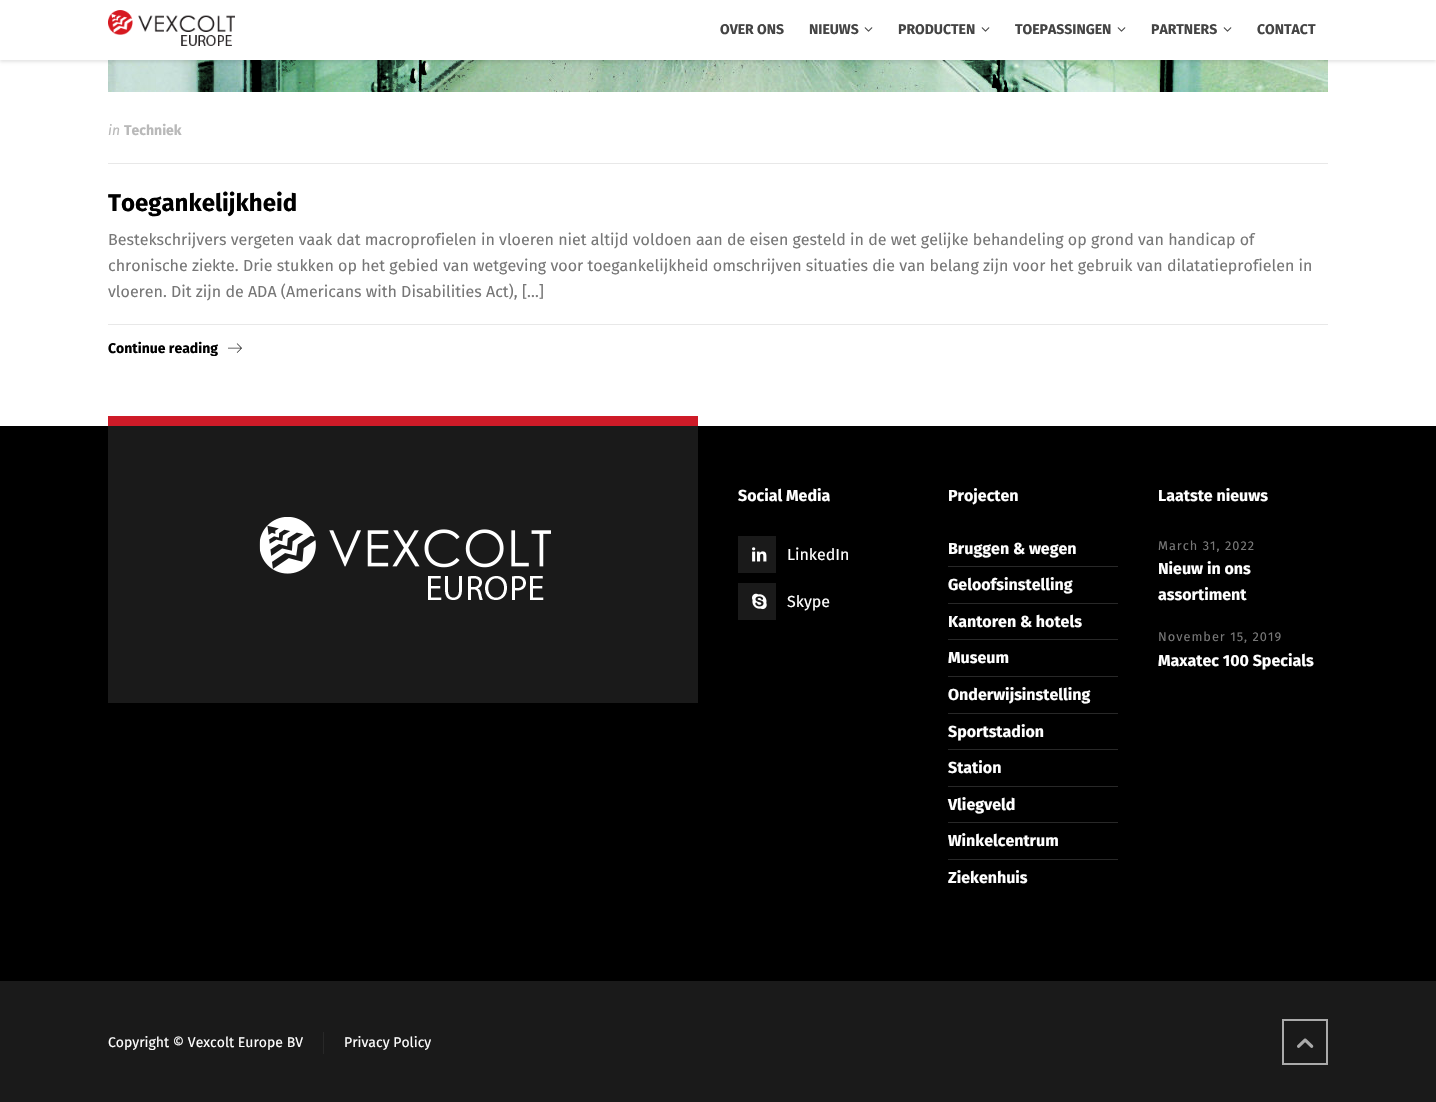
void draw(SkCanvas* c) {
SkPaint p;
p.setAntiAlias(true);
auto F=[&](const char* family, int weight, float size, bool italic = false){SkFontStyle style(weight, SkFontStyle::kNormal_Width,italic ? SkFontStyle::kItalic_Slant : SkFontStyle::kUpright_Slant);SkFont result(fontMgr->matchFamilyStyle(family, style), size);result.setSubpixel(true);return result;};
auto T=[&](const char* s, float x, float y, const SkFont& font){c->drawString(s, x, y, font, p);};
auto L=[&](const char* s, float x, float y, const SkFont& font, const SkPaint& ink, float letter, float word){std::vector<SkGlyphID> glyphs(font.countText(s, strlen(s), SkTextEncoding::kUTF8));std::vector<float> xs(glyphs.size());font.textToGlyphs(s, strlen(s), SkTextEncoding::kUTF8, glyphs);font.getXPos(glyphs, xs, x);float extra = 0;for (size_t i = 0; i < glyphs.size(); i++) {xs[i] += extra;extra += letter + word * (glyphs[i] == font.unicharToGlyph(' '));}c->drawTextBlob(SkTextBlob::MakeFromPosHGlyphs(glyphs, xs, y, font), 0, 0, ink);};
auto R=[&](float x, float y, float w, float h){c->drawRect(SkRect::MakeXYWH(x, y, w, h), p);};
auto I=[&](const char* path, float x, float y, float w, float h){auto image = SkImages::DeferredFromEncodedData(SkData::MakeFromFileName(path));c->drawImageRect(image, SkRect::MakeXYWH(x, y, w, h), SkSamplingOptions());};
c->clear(0xffffffff);
I("3.png",108,60,1220,32);
p.setColor(0x1a000000);
p.setMaskFilter(SkMaskFilter::MakeBlur(kNormal_SkBlurStyle, 1.5));
c->drawRect(SkRect::MakeXYWH(0,2,1436,60),p);
p.setMaskFilter(nullptr);
p.setColor(0xffffffff);
R(0,0,1436,60);
I("1.png",108,10,127,36);
auto f1 = F("Fira Sans",700,14);
p.setColor(0xff444444);
T("OVER ONS",720,34,f1);
T("NIEUWS",809,34,f1);
I("2.png",864,27,9,5);
T("PRODUCTEN",898,34,f1);
I("2.png",981,27,9,5);
T("TOEPASSINGEN",1015,34,f1);
I("2.png",1117,27,9,5);
T("PARTNERS",1151,34,f1);
I("2.png",1223,27,9,5);
T("CONTACT",1257,34,f1);
auto f2 = F("Fira Sans",400,14,true);
p.setColor(0xffb9b9b9);
T("in",108,135,f2);
T("Techniek",124,135,f1);
p.setColor(0xffe8e8e8);
R(108,163,1220,1);
auto f3 = F("Fira Sans",700,24);
p.setColor(0xff000000);
T("Toegankelijkheid",108,211,f3);
auto f4 = F("Fira Sans",400,16);
p.setColor(0xff777777);
T("Bestekschrijvers vergeten vaak dat macroprofielen in vloeren niet altijd voldoen aan de eisen gesteld in de wet gelijke behandeling op grond van handicap of",108,245,f4);
T("chronische ziekte. Drie stukken op het gebied van wetgeving voor toegankelijkheid omschrijven situaties die van belang zijn voor het gebruik van dilatatieprofielen in",108,271,f4);
T("vloeren. Dit zijn de ADA (Americans with Disabilities Act), […]",108,297,f4);
p.setColor(0xffe8e8e8);
R(108,324,1220,1);
p.setColor(0xff000000);
T("Continue reading",108,353,f1);
I("4.png",228,343,14,10);
R(0,426,1436,555);
p.setColor(0xff1a1a1a);
R(108,426,590,277);
p.setColor(0xffce1b28);
R(108,416,590,10);
I("5.png",259,517,292,83);
auto f5 = F("Fira Sans",700,16);
p.setColor(0xffffffff);
T("Social Media",738,501,f5);
p.setColor(0xff1a1a1a);
R(738,536,38,37);
I("6.png",752,547,15,15);
p.setColor(0xffffffff);
T("LinkedIn",787,560,f4);
p.setColor(0xff1a1a1a);
R(738,583,38,37);
I("7.png",752,593,15,17);
p.setColor(0xffffffff);
T("Skype",787,607,f4);
T("Projecten",948,501,f5);
p.setColor(0xff282828);
R(948,566,170,1);
p.setColor(0xffffffff);
T("Bruggen & wegen",948,554,f5);
p.setColor(0xff282828);
R(948,603,170,1);
p.setColor(0xffffffff);
T("Geloofsinstelling",948,590,f5);
p.setColor(0xff282828);
R(948,639,170,1);
p.setColor(0xffffffff);
T("Kantoren & hotels",948,627,f5);
p.setColor(0xff282828);
R(948,676,170,1);
p.setColor(0xffffffff);
T("Museum",948,663,f5);
p.setColor(0xff282828);
R(948,713,170,1);
p.setColor(0xffffffff);
T("Onderwijsinstelling",948,700,f5);
p.setColor(0xff282828);
R(948,749,170,1);
p.setColor(0xffffffff);
T("Sportstadion",948,737,f5);
p.setColor(0xff282828);
R(948,786,170,1);
p.setColor(0xffffffff);
T("Station",948,773,f5);
p.setColor(0xff282828);
R(948,822,170,1);
p.setColor(0xffffffff);
T("Vliegveld",948,810,f5);
p.setColor(0xff282828);
R(948,859,170,1);
p.setColor(0xffffffff);
T("Winkelcentrum",948,846,f5);
T("Ziekenhuis",948,883,f5);
T("Laatste nieuws",1158,501,f5);
auto f6 = F("Fira Sans",400,12.75);
p.setColor(0xff777777);
L("March 31, 2022",1158,550,f6,p,1,0);
p.setColor(0xffffffff);
T("Nieuw in ons",1158,574,f5);
T("assortiment",1158,600,f5);
p.setColor(0xff777777);
L("November 15, 2019",1158,641,f6,p,1,0);
p.setColor(0xffffffff);
T("Maxatec 100 Specials",1158,666,f5);
p.setColor(0xff1a1a1a);
R(0,981,1436,121);
auto f7 = F("Fira Sans",400,14);
p.setColor(0xffffffff);
T("Copyright © Vexcolt Europe BV",108,1047,f7);
p.setColor(0xff282828);
R(323,1032,1,22);
p.setColor(0xffffffff);
T("Privacy Policy",344,1047,f7);
p.setStroke(true);
p.setStrokeWidth(2);
p.setColor(0xffaaaaaa);
c->drawRect(SkRect::MakeXYWH(1283,1020,44,44),p);
I("8.png",1297,1038,17,10);
}
